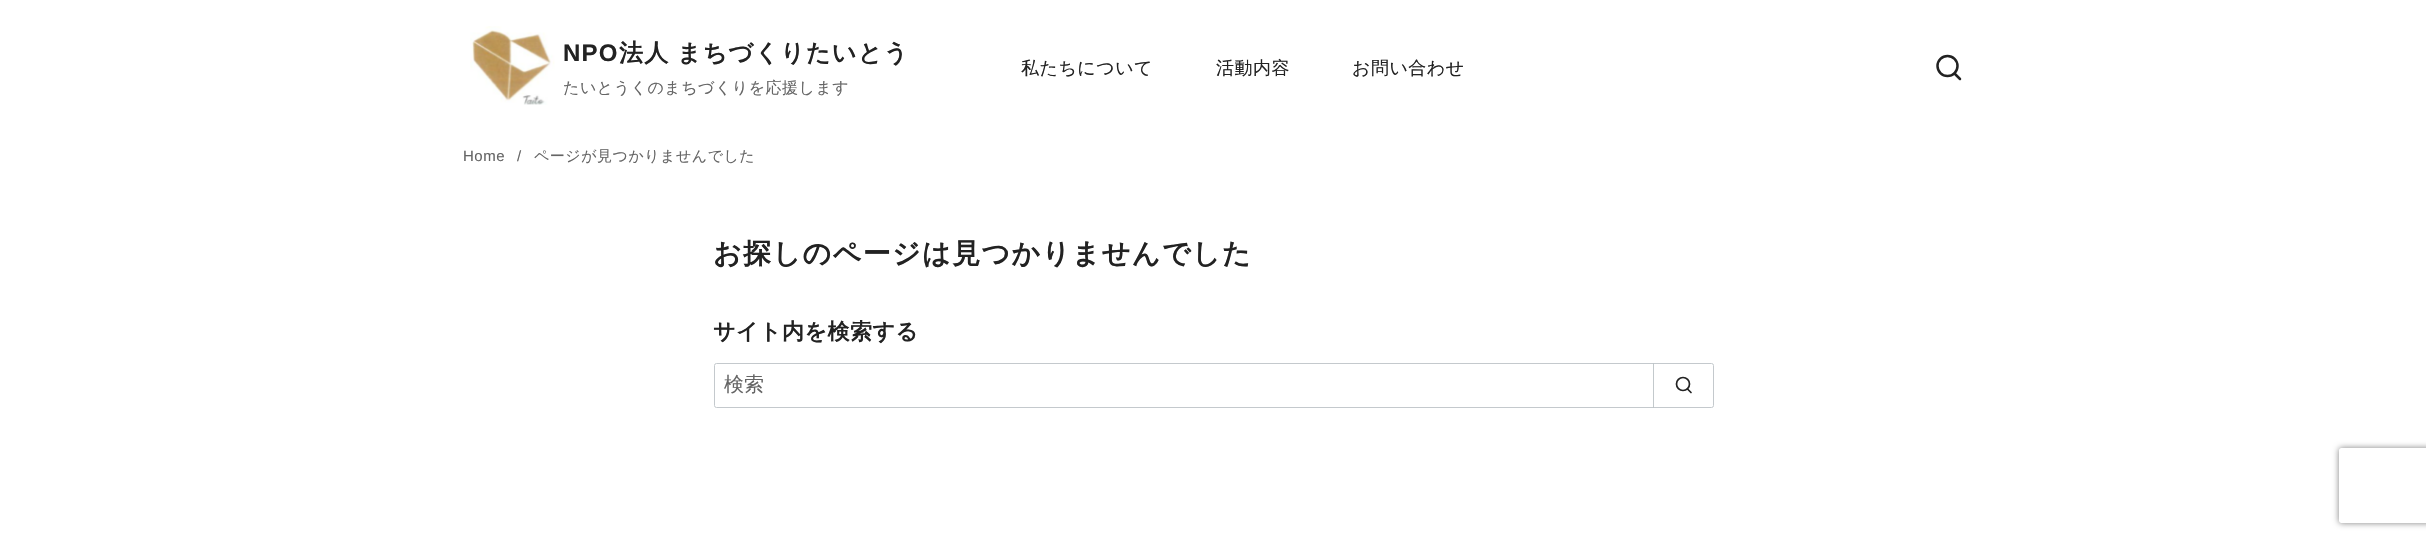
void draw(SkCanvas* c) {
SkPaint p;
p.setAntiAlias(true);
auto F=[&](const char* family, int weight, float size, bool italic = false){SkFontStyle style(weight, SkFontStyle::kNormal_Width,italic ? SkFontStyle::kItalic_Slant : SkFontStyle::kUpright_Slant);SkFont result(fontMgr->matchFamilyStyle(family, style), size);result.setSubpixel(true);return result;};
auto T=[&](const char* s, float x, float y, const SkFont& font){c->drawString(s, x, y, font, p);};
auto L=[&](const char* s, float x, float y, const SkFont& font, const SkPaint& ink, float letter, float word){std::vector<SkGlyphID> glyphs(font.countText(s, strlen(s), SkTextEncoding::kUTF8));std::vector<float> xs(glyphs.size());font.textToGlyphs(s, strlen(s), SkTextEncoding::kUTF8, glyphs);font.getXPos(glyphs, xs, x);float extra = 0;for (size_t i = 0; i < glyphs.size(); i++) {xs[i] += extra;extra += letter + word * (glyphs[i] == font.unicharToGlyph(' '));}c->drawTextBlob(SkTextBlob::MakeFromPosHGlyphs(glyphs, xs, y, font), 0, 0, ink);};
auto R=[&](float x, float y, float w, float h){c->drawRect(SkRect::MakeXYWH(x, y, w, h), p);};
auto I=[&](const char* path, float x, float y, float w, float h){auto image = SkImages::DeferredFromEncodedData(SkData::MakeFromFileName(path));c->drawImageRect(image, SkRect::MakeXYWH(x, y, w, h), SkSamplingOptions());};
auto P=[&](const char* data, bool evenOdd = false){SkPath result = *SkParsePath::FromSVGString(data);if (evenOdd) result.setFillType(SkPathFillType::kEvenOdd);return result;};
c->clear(0xffffffff);
I("1.png",470,26,85,79);
auto f1 = F("Liberation Sans",700,24);
p.setColor(0xff222222);
L("NPO",563,61,f1,p,1.25,0);
auto f2 = F("WenQuanYi Zen Hei",700,24);
L("法人 まちづくりたいとう",619,61,f2,p,1.25,-1);
auto f3 = F("WenQuanYi Zen Hei",500,16);
p.setColor(0xff656565);
L("たいとうくのまちづくりを応援します",563,93,f3,p,.5,0);
auto f4 = F("WenQuanYi Zen Hei",500,18);
p.setColor(0xff222222);
L("私たちについて",1021,74,f4,p,.5,0);
L("活動内容",1216,74,f4,p,.5,0);
L("お問い合わせ",1352,74,f4,p,.5,0);
p.setStroke(true);
p.setStrokeWidth(2.5);
c->drawCircle(1947.5,66,10,p);
p.setStrokeCap(SkPaint::kRound_Cap);
p.setStrokeJoin(SkPaint::kRound_Join);
c->drawPath(P("M1960 79l-5.5-5.5"),p);
auto f5 = F("Liberation Sans",400,15);
p.setStroke(false);
p.setColor(0xff656565);
L("Home",463,161,f5,p,.5,0);
L("/",517,161,f5,p,.5,0);
auto f6 = F("WenQuanYi Zen Hei",500,15);
L("ページが見つかりませんでした",534,161,f6,p,.5,0);
auto f7 = F("WenQuanYi Zen Hei",700,28);
p.setColor(0xff222222);
L("お探しのページは見つかりませんでした",713,263,f7,p,1.4,0);
auto f8 = F("WenQuanYi Zen Hei",700,22);
L("サイト内を検索する",713,339,f8,p,.5,0);
p.setStroke(true);
p.setStrokeWidth(1);
p.setStrokeCap(SkPaint::kButt_Cap);
p.setStrokeJoin(SkPaint::kMiter_Join);
p.setColor(0xffc4c9cd);
c->drawRoundRect(SkRect::MakeXYWH(714.5,363.5,999,44),2,2,p);
auto f9 = F("WenQuanYi Zen Hei",500,20);
p.setStroke(false);
p.setColor(0xff656565);
T("検索",724,391,f9);
p.setColor(0xe6bdc3c7);
R(1653,363,1,45);
p.setStroke(true);
p.setStrokeWidth(1.7);
p.setColor(0xff222222);
c->drawCircle(1683,384,6.5,p);
p.setStrokeCap(SkPaint::kRound_Cap);
p.setStrokeJoin(SkPaint::kRound_Join);
c->drawPath(P("M1691 392.5l-3.5-3.5"),p);
c->save();
c->clipPath(P("M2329 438h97v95h-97zm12.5 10h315c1.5 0 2.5 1 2.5 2.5v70c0 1.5-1 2.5-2.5 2.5h-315c-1.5 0-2.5-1-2.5-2.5v-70c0-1.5 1-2.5 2.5-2.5z",true),true);
p.setStroke(false);
p.setColor(0xff808080);
p.setMaskFilter(SkMaskFilter::MakeBlur(kNormal_SkBlurStyle, 3));
c->drawRoundRect(SkRect::MakeXYWH(2339,448,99,75),2.5,2.5,p);
p.setMaskFilter(nullptr);
c->restore();
}
